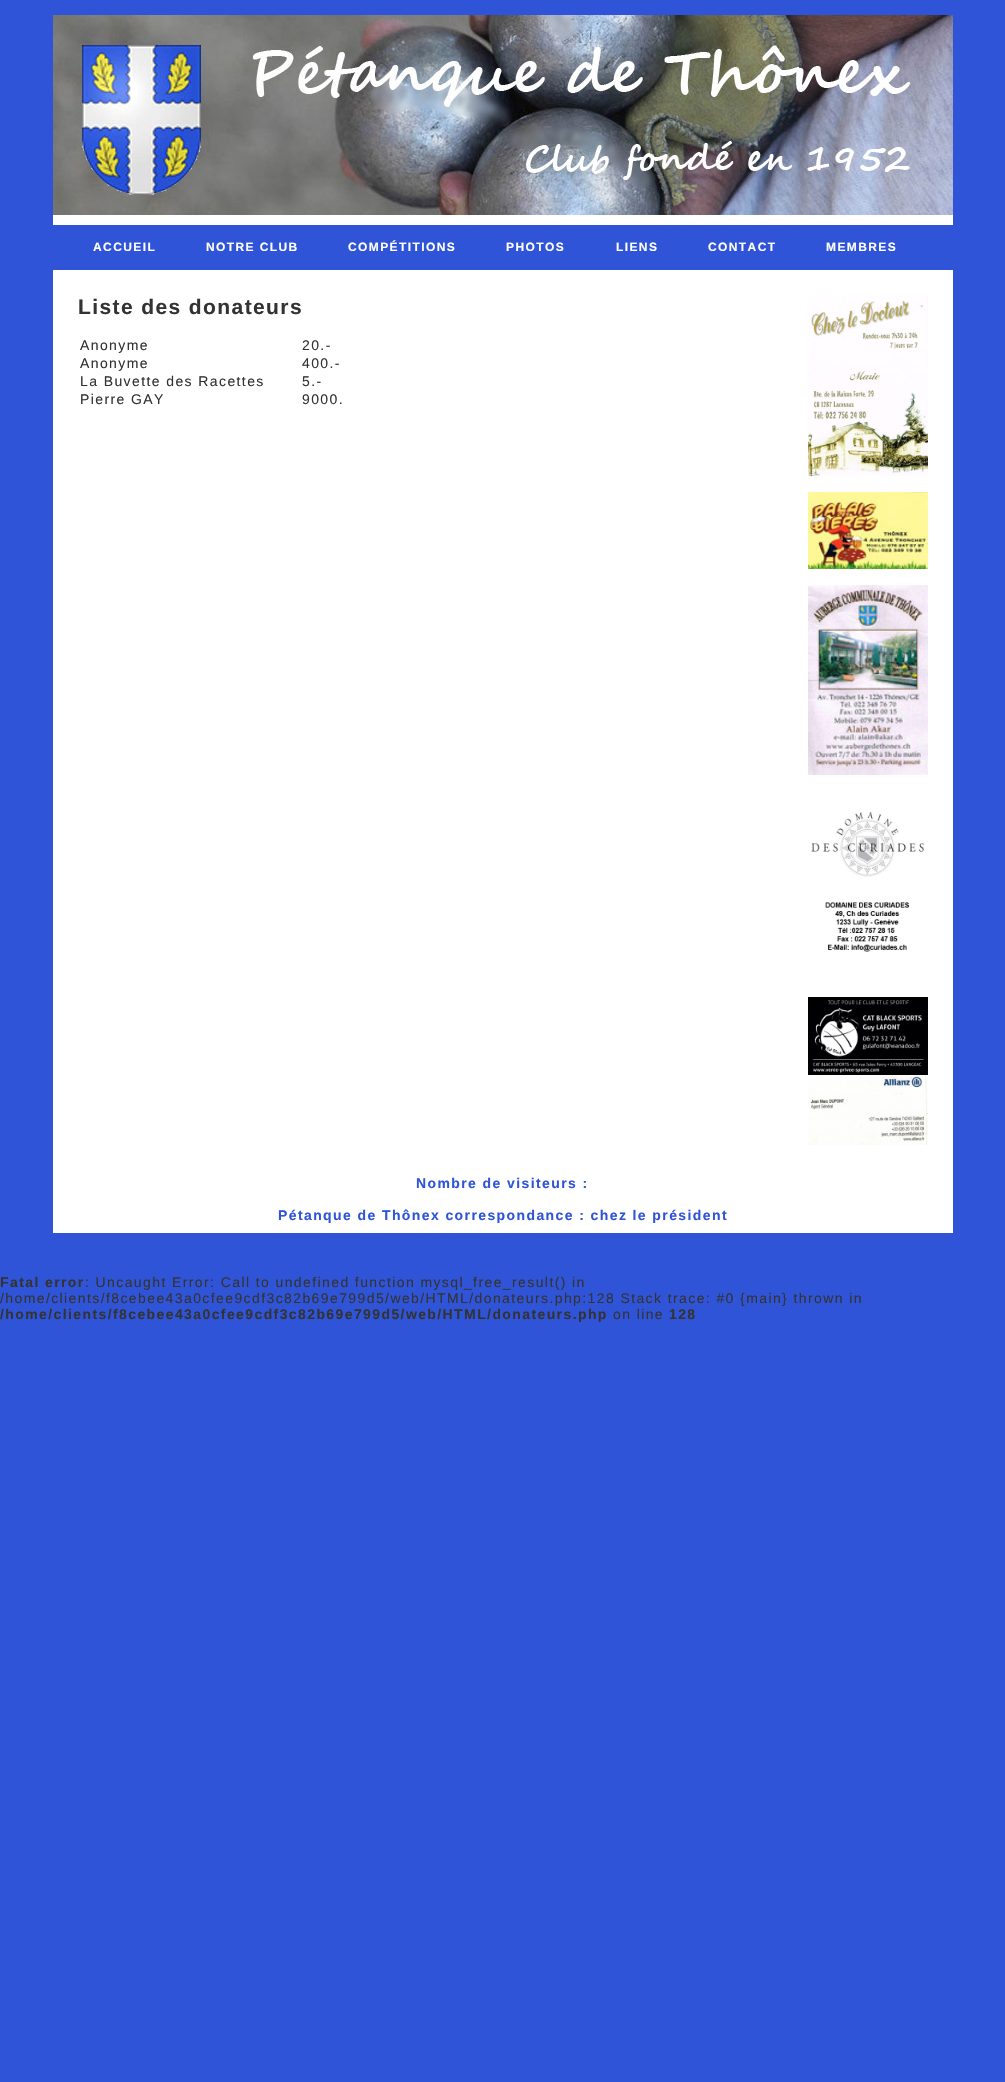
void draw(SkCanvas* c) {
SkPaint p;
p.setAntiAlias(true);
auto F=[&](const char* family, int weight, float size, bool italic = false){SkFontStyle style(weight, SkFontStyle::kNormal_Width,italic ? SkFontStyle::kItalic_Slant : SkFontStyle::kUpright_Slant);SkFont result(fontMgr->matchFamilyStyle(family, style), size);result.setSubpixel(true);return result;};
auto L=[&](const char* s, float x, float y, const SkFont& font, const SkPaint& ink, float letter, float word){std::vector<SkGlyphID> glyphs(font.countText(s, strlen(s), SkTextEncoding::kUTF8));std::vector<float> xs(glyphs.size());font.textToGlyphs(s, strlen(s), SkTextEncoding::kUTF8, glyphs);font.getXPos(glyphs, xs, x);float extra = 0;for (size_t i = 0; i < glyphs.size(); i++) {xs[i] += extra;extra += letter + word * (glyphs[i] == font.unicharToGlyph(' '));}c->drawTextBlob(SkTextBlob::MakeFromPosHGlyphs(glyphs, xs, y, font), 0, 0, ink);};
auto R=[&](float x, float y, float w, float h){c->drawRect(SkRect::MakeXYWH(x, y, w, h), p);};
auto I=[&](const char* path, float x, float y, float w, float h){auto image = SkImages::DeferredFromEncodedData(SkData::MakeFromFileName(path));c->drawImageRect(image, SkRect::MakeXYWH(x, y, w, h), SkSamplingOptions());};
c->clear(0xff2f54d8);
p.setColor(0xffffffff);
R(53,215,900,1018);
I("1.png",53,15,900,200);
p.setColor(0xff2f54d8);
R(53,225,900,45);
auto f1 = F("Liberation Sans",700,12);
p.setColor(0xffffffff);
L("ACCUEIL",93,251,f1,p,1.4,0);
L("NOTRE CLUB",206,251,f1,p,1.4,0);
L("COMPÉTITIONS",348,251,f1,p,1.4,0);
L("PHOTOS",506,251,f1,p,1.4,0);
L("LIENS",616,251,f1,p,1.4,0);
L("CONTACT",708,251,f1,p,1.4,0);
L("MEMBRES",826,251,f1,p,1.4,0);
auto f2 = F("Liberation Sans",700,21);
p.setColor(0xff333333);
L("Liste des donateurs",78,314,f2,p,1.4,0);
auto f3 = F("Liberation Sans",400,14);
L("Anonyme",80,350,f3,p,1.4,0);
L("20.-",302,350,f3,p,1.4,0);
L("Anonyme",80,368,f3,p,1.4,0);
L("400.-",302,368,f3,p,1.4,0);
L("La Buvette des Racettes",80,386,f3,p,1.4,0);
L("5.-",302,386,f3,p,1.4,0);
L("Pierre GAY",80,404,f3,p,1.4,0);
L("9000.",302,404,f3,p,1.4,0);
I("2.png",808,295,120,181);
I("3.png",808,492,120,77);
I("4.png",808,585,120,190);
I("5.png",811,812,113,140);
I("6.png",808,997,120,78);
I("7.png",808,1075,120,70);
auto f4 = F("Liberation Sans",700,14);
p.setColor(0xff2f54d8);
L("Nombre de visiteurs :",416,1188,f4,p,1.4,0);
L("Pétanque de Thônex correspondance : chez le président",278,1220,f4,p,1.4,0);
p.setColor(0xff333333);
L("Fatal error",0,1287,f4,p,1.4,0);
L(": Uncaught Error: Call to undefined function mysql_free_result() in",85,1287,f3,p,1.4,0);
L("/home/clients/f8cebee43a0cfee9cdf3c82b69e799d5/web/HTML/donateurs.php:128 Stack trace: #0 {main} thrown in",0,1303,f3,p,1.4,0);
L("/home/clients/f8cebee43a0cfee9cdf3c82b69e799d5/web/HTML/donateurs.php",0,1319,f4,p,1.4,0);
L("on line",613,1319,f3,p,1.4,0);
L("128",669,1319,f4,p,1.4,0);
}
